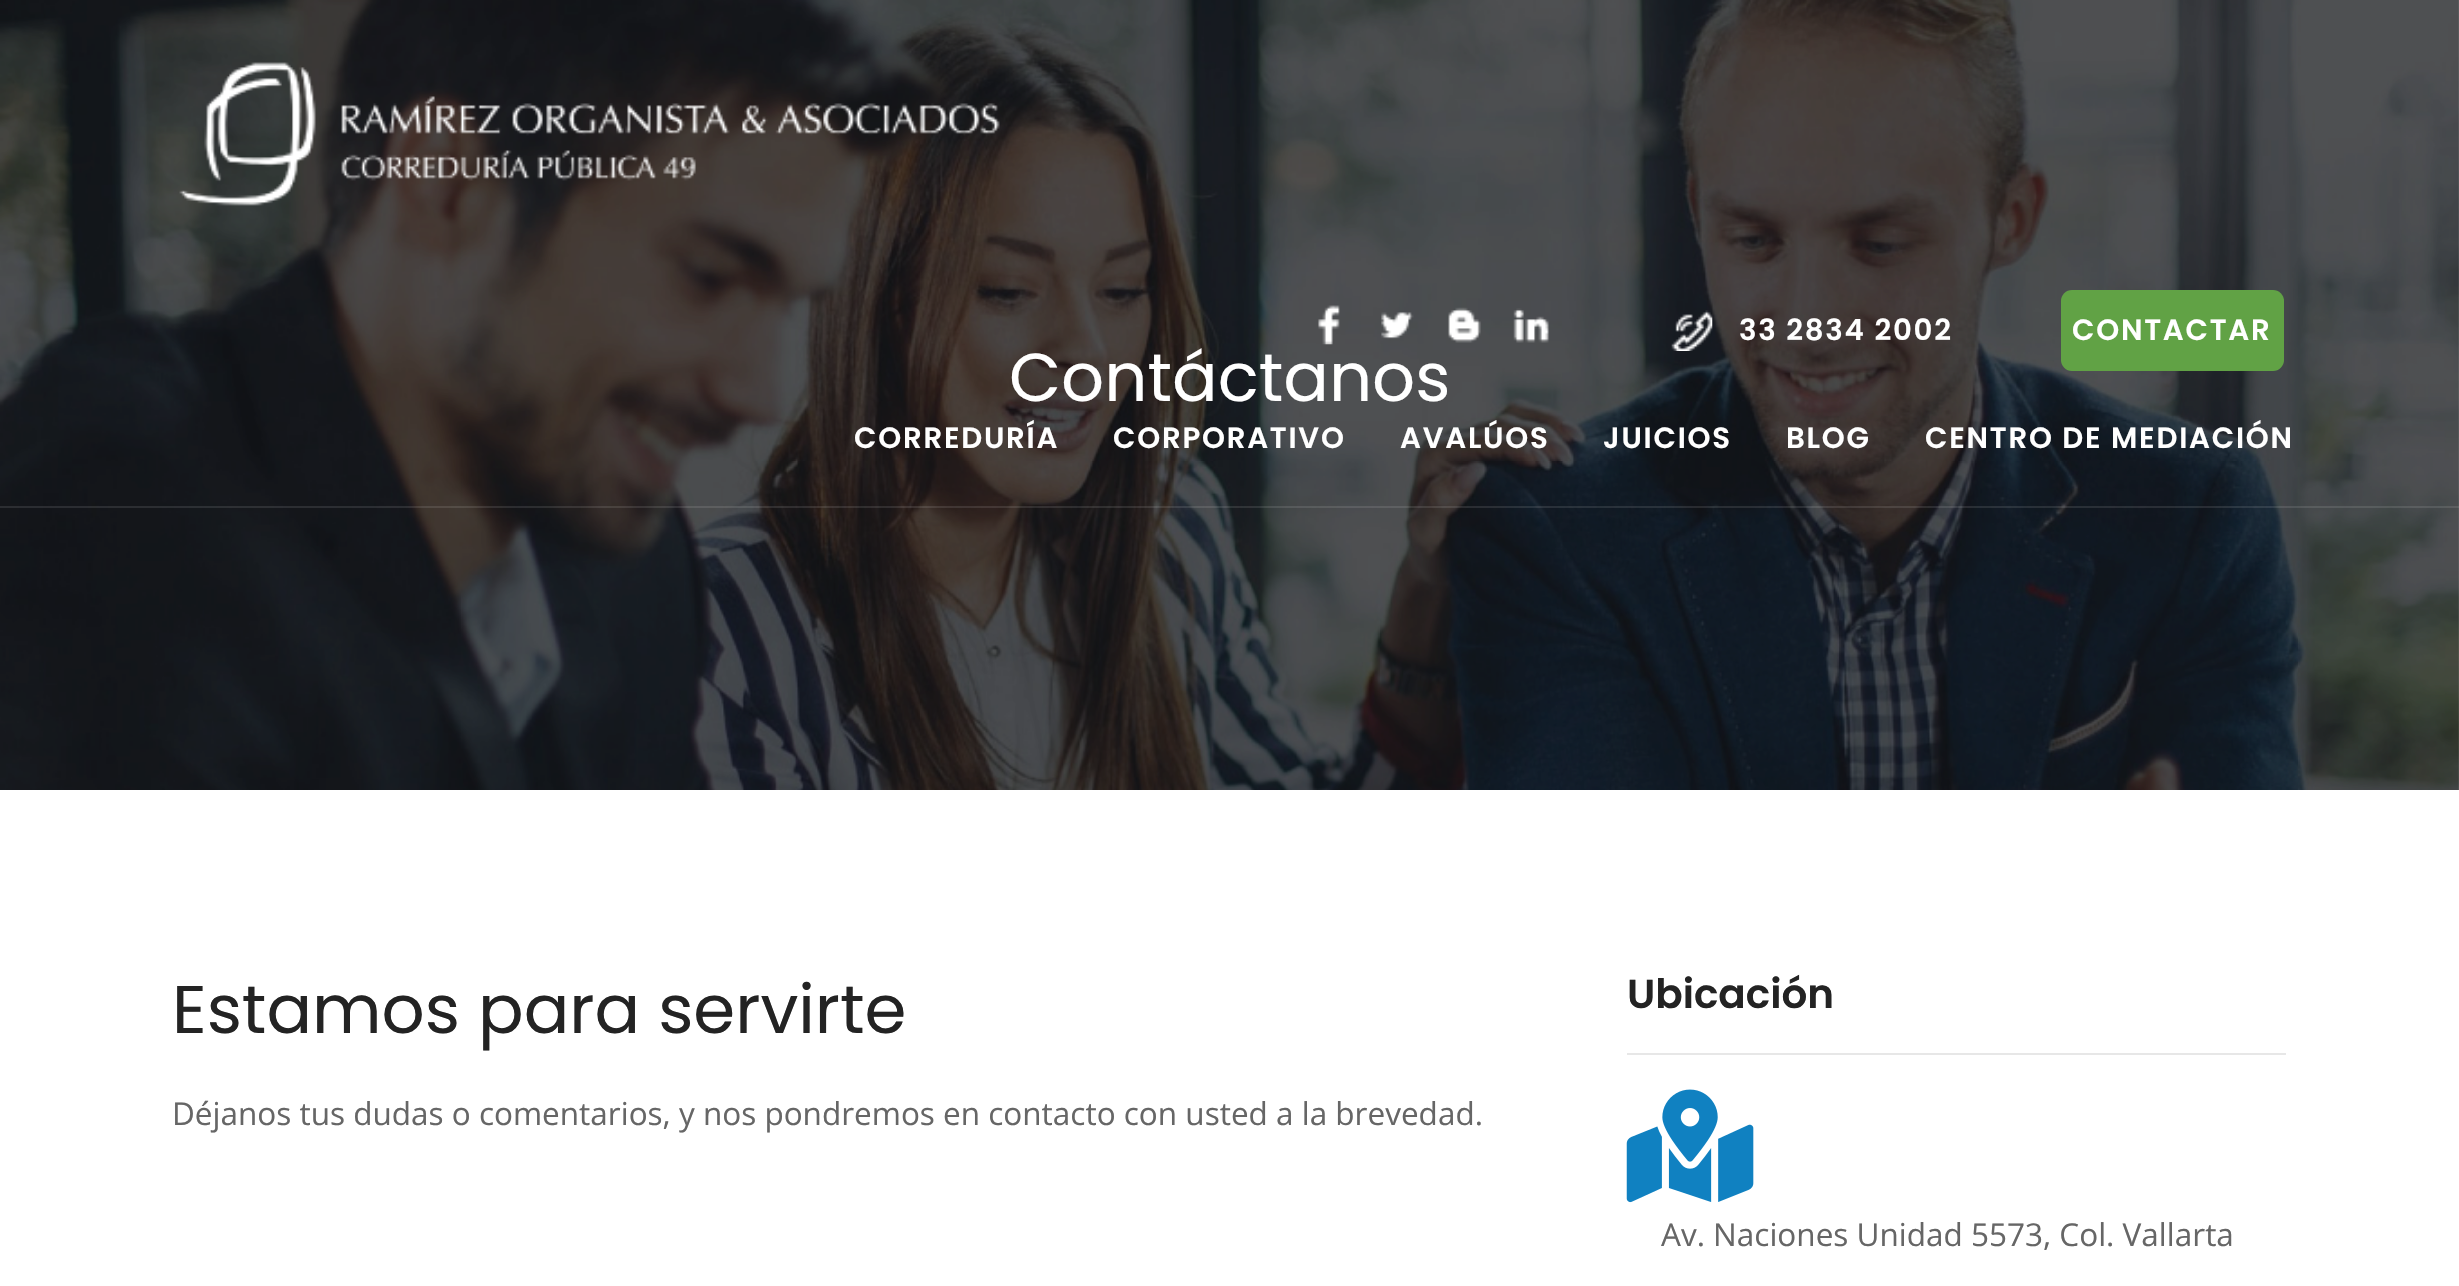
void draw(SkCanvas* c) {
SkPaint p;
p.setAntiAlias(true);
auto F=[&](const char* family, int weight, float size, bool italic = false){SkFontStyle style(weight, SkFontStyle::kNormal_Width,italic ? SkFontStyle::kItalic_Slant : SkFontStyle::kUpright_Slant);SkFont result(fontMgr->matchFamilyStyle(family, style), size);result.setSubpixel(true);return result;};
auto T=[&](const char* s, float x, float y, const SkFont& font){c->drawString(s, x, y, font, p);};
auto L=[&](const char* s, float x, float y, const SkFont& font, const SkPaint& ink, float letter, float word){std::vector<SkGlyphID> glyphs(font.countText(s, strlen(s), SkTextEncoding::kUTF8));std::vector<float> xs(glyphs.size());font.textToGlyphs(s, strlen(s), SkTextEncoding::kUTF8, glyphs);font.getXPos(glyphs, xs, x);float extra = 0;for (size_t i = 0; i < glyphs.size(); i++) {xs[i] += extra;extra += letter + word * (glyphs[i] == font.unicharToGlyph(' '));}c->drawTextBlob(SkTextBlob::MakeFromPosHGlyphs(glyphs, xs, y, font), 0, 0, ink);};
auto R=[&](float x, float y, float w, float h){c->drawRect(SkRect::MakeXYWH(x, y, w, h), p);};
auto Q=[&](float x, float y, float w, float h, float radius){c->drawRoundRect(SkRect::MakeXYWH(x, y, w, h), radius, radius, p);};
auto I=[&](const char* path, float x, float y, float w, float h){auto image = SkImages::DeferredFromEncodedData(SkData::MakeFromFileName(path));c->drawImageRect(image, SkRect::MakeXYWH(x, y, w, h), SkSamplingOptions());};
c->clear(0xffffffff);
I("7.png",0,0,2459,790);
p.setColor(0x1affffff);
R(0,506,2459,2);
I("1.png",179,62,821,144);
I("2.png",1318,305,22,40);
I("3.png",1381,312,33,27);
I("4.png",1448,307,33,36);
I("5.png",1513,308,36,35);
I("6.png",1671,310,42,41);
auto f1 = F("Poppins",600,29.25);
p.setColor(0xffffffff);
L("33 2834 2002",1739,340,f1,p,1.75,0);
p.setColor(0xff61a245);
Q(2061,290,223,81,11);
p.setColor(0xffffffff);
L("CONTACTAR",2072,340,f1,p,1.75,0);
L("CORREDURÍA",854,448,f1,p,1.75,0);
L("CORPORATIVO",1113,448,f1,p,1.75,0);
L("AVALÚOS",1400,448,f1,p,1.75,0);
L("JUICIOS",1603,448,f1,p,1.75,0);
L("BLOG",1786,448,f1,p,1.75,0);
L("CENTRO DE MEDIACIÓN",1925,448,f1,p,1.75,0);
auto f2 = F("Poppins",400,67.5);
T("Contáctanos",1009,401,f2);
p.setColor(0xff232323);
T("Estamos para servirte",172,1033,f2);
auto f3 = F("Open Sans",400,31.5);
p.setColor(0xff666666);
T("Déjanos tus dudas o comentarios, y nos pondremos en contacto con usted a la brevedad.",172,1125,f3);
p.setColor(0xffe7e7e7);
R(1627,1053,659,2);
auto f4 = F("Poppins",600,40.5);
p.setColor(0xff232323);
T("Ubicación",1627,1008,f4);
I("8.png",1626,1089,128,114);
p.setColor(0xff666666);
T("Av. Naciones Unidad 5573, Col. Vallarta",1661,1246,f3);
}
